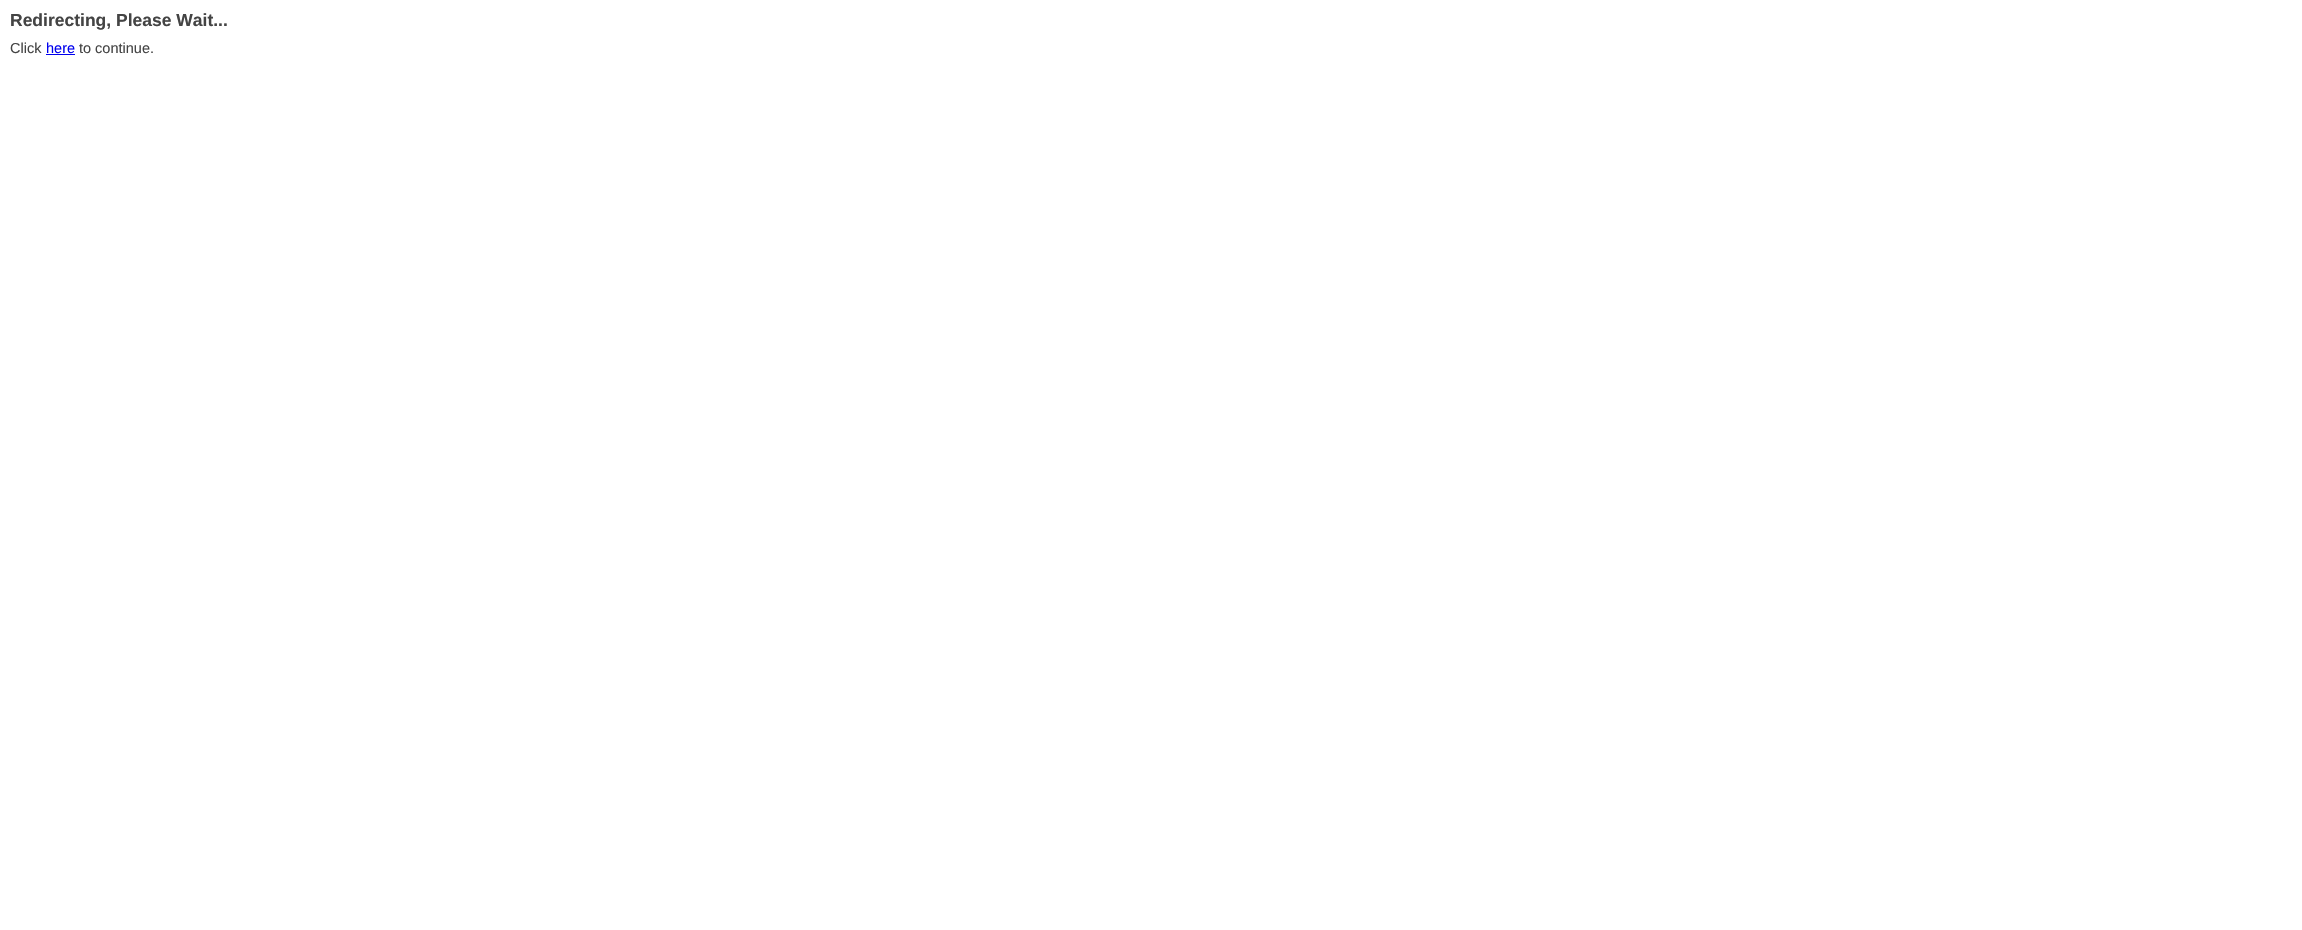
void draw(SkCanvas* c) {
SkPaint p;
p.setAntiAlias(true);
auto F=[&](const char* family, int weight, float size, bool italic = false){SkFontStyle style(weight, SkFontStyle::kNormal_Width,italic ? SkFontStyle::kItalic_Slant : SkFontStyle::kUpright_Slant);SkFont result(fontMgr->matchFamilyStyle(family, style), size);result.setSubpixel(true);return result;};
auto T=[&](const char* s, float x, float y, const SkFont& font){c->drawString(s, x, y, font, p);};
auto R=[&](float x, float y, float w, float h){c->drawRect(SkRect::MakeXYWH(x, y, w, h), p);};
c->clear(0xffffffff);
auto f1 = F("Liberation Sans",700,17.5);
p.setColor(0xff444444);
T("Redirecting, Please Wait...",10,26,f1);
auto f2 = F("Liberation Sans",400,14.5);
T("Click",10,53,f2);
p.setColor(0xff0000ee);
T("here",46,53,f2);
R(46,54,29,1);
p.setColor(0xff444444);
T("to continue.",79,53,f2);
}
